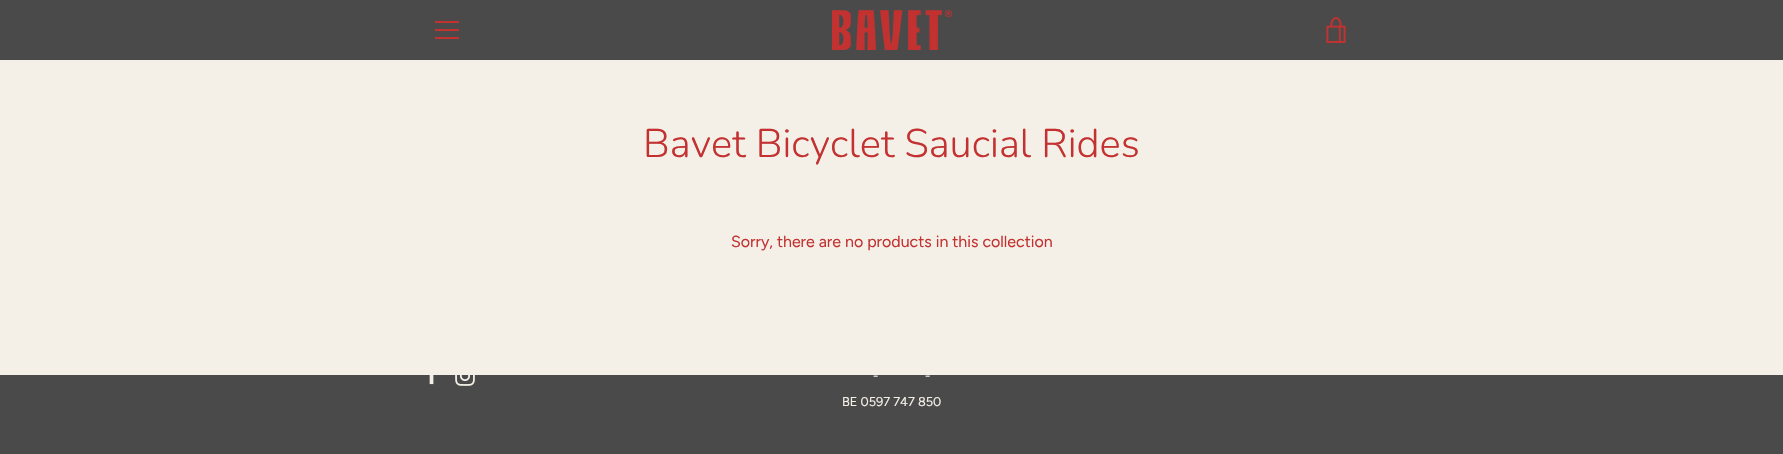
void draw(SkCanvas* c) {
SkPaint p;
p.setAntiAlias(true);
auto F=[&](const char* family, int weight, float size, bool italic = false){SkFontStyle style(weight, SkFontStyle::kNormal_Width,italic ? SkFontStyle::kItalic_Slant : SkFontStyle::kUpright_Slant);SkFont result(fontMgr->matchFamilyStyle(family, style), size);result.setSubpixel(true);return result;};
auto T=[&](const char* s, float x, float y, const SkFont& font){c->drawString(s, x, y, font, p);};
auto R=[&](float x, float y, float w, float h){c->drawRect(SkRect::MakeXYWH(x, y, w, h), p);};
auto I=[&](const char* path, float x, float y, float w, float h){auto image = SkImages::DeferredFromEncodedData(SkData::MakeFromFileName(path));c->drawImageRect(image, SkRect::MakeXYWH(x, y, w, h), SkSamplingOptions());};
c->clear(0xff4a4a4a);
p.setColor(0xffc33130);
R(435,21,24,2);
R(435,29,24,2);
R(435,37,24,2);
I("1.png",832,10,120,40);
I("2.png",1326,17,20,26);
p.setColor(0xfff4f0e8);
R(0,60,1783,315);
auto f1 = F("Nunito",300,40);
p.setColor(0xffc33130);
T("Bavet Bicyclet Saucial Rides",643,157,f1);
auto f2 = F("Figtree",400,16);
T("Sorry, there are no products in this collection",731,247,f2);
I("3.png",429,375,5,10);
I("4.png",455,375,20,11);
auto f3 = F("Figtree",400,12.75);
p.setColor(0xfff4f0e8);
T("-",873,380,f3);
T("-",925,380,f3);
T("BE 0597 747 850",842,406,f3);
}
